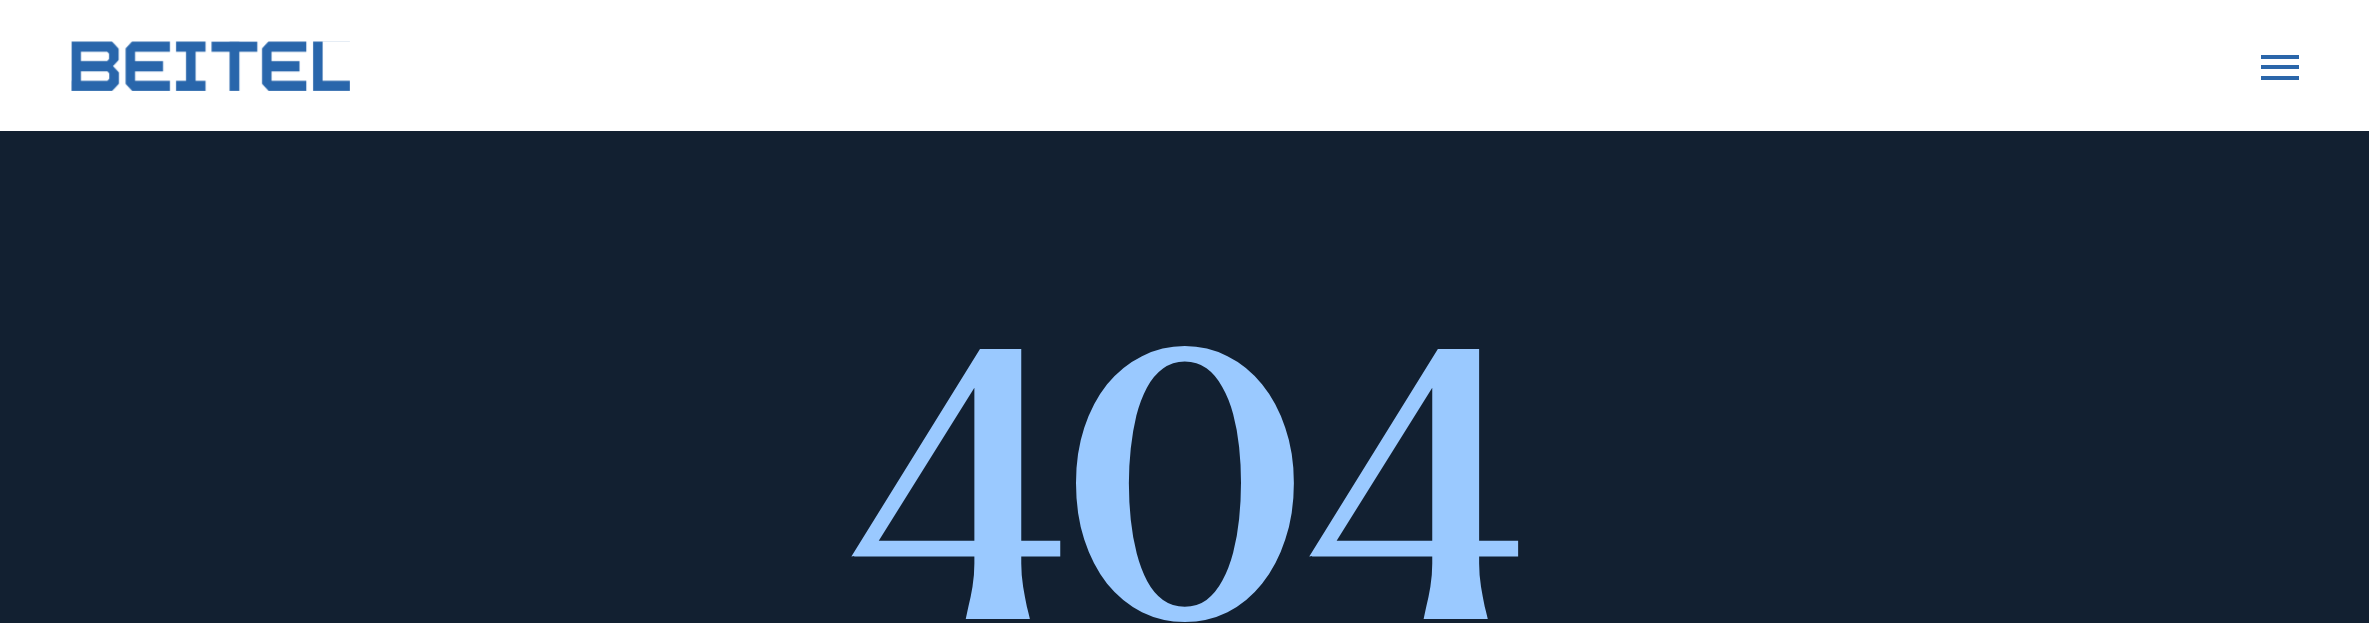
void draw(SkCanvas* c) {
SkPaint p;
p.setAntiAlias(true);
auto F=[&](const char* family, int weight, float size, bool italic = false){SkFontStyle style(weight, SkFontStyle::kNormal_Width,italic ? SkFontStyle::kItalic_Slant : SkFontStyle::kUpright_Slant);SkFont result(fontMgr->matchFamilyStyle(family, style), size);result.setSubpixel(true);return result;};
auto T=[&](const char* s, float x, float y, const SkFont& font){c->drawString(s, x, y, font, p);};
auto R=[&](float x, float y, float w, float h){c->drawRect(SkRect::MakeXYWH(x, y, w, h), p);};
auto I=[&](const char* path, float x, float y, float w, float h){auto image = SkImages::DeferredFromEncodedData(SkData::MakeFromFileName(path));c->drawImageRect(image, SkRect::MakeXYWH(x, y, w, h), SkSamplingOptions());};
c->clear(0xff122031);
p.setColor(0xffffffff);
R(0,0,2369,131);
I("1.png",71,41,279,50);
p.setColor(0xff2b66aa);
R(2261,76,38,4);
R(2261,55,38,4);
R(2261,65,38,4);
auto f1 = F("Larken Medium",500,375);
p.setColor(0xff9ac9ff);
T("404",848,619,f1);
}
